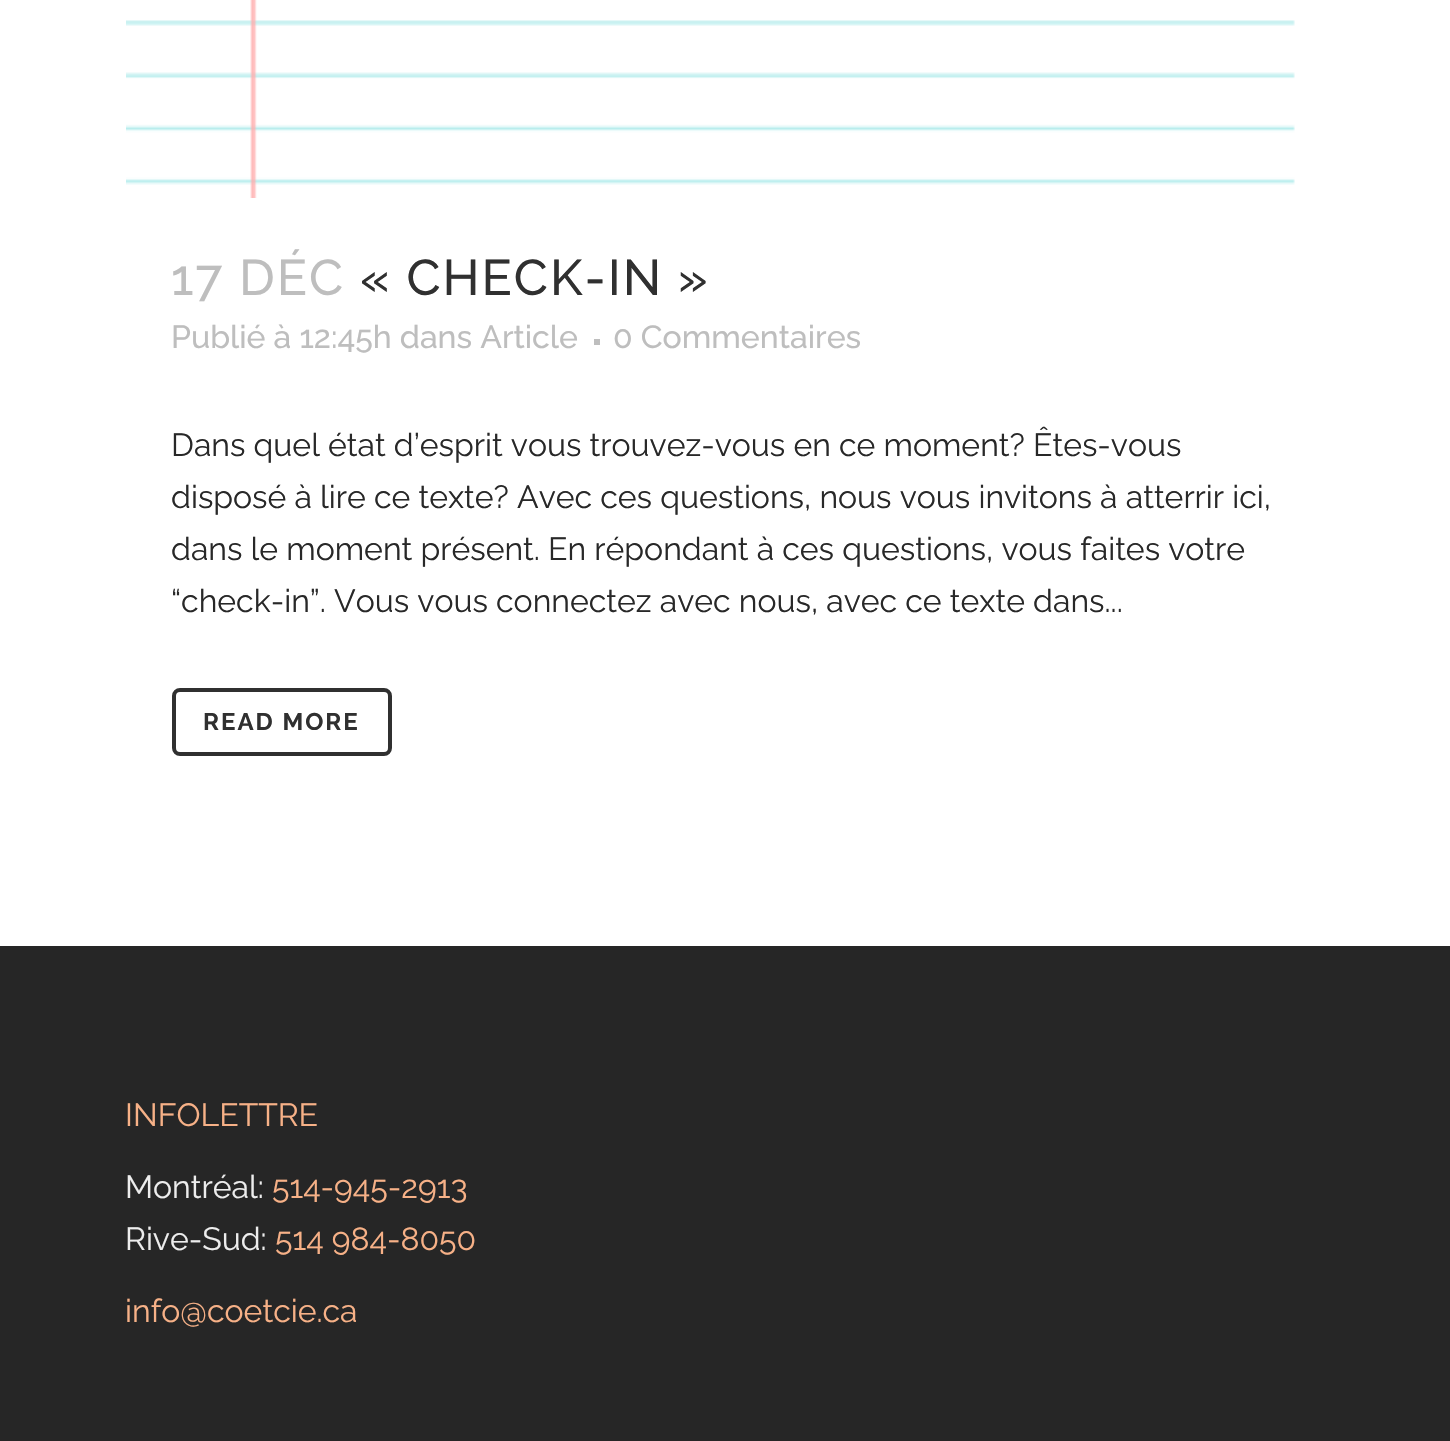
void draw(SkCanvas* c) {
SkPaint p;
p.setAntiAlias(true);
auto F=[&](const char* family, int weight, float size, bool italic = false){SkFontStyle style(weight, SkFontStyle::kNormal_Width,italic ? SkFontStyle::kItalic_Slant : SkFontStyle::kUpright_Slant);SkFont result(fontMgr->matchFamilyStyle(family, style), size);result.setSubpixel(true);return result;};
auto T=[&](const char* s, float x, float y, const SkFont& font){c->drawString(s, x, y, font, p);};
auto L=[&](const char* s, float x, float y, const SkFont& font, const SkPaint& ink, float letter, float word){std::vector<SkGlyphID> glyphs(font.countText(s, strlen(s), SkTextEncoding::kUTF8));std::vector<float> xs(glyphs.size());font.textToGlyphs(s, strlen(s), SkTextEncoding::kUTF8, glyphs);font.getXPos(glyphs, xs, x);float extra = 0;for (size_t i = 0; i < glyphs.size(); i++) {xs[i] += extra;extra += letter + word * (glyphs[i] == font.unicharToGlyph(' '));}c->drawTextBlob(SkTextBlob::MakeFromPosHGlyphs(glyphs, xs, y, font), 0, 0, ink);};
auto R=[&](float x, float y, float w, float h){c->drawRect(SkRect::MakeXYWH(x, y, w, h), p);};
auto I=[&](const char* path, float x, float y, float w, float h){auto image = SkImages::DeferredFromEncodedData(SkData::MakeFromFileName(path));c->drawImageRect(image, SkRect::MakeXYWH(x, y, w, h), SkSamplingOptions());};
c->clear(0xffffffff);
I("1.png",126,0,1169,198);
auto f1 = F("Raleway",500,50);
p.setColor(0xffbebebe);
L("17 DÉC",171,295,f1,p,2,0);
p.setColor(0xff303030);
L("« CHECK-IN »",360,295,f1,p,2,0);
auto f2 = F("Raleway",500,32);
p.setColor(0xffbebebe);
T("Publié à 12:45h dans Article",171,348,f2);
R(594,339,6,6);
T("0 Commentaires",613,348,f2);
auto f3 = F("Raleway",400,32);
p.setColor(0xff282828);
T("Dans quel état d’esprit vous trouvez-vous en ce moment? Êtes-vous",171,456,f3);
T("disposé à lire ce texte? Avec ces questions, nous vous invitons à atterrir ici,",171,508,f3);
T("dans le moment présent. En répondant à ces questions, vous faites votre",171,560,f3);
T("“check-in”. Vous vous connectez avec nous, avec ce texte dans...",171,612,f3);
p.setStroke(true);
p.setStrokeWidth(4);
p.setColor(0xff303030);
c->drawRoundRect(SkRect::MakeXYWH(174,690,216,64),6,6,p);
auto f4 = F("Raleway",700,24);
p.setStroke(false);
L("READ MORE",203,730,f4,p,2,0);
p.setColor(0xff262626);
R(0,946,1450,495);
p.setColor(0xfff7b187);
T("INFOLETTRE",125,1126,f3);
p.setColor(0xffededed);
T("Montréal:",125,1198,f3);
p.setColor(0xfff7b187);
T("514-945-2913",272,1198,f3);
p.setColor(0xffededed);
T("Rive-Sud:",125,1250,f3);
p.setColor(0xfff7b187);
T("514 984-8050",275,1250,f3);
T("info@coetcie.ca",125,1322,f3);
}
